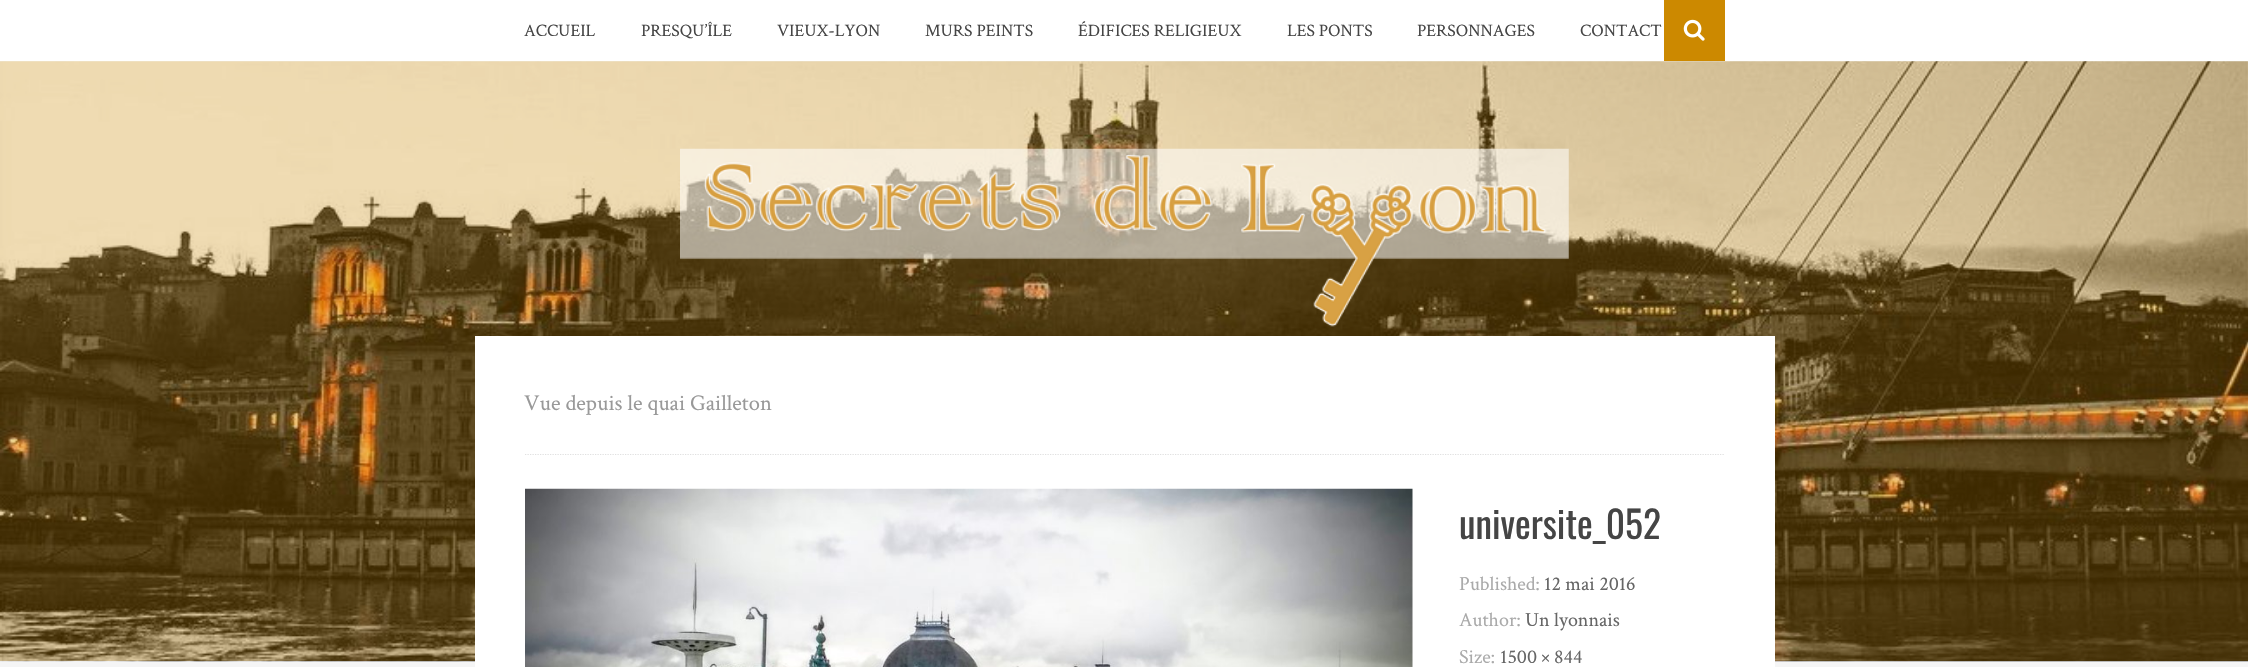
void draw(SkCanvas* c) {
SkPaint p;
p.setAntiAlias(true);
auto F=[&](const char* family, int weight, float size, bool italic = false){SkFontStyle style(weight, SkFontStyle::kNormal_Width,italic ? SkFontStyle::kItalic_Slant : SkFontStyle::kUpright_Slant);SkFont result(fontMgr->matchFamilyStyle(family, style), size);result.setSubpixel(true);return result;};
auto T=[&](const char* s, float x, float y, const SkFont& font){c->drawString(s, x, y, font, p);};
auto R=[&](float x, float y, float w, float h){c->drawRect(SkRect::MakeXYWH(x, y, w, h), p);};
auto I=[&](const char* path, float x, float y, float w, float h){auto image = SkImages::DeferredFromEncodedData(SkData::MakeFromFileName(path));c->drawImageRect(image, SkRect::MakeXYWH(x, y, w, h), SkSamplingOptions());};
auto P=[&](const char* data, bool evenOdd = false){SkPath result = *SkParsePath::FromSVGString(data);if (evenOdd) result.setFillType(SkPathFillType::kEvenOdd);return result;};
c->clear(0xfff5f5f5);
p.setColor(0x1ac2ae85);
p.setMaskFilter(SkMaskFilter::MakeBlur(kNormal_SkBlurStyle, 2.5));
c->drawRect(SkRect::MakeXYWH(0,1,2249,62),p);
p.setMaskFilter(nullptr);
p.setColor(0xffffffff);
R(0,0,2248,61);
auto f1 = F("Crimson Text",400,17.5);
p.setColor(0xff454545);
T("ACCUEIL",524,36,f1);
T("PRESQU’ÎLE",641,36,f1);
T("VIEUX-LYON",777,36,f1);
T("MURS PEINTS",925,36,f1);
T("ÉDIFICES RELIGIEUX",1078,36,f1);
T("LES PONTS",1287,36,f1);
T("PERSONNAGES",1417,36,f1);
T("CONTACT",1580,36,f1);
p.setColor(0xffcc8900);
R(1664,0,61,61);
I("1.png",1683,19,22,22);
I("2.png",0,61,2248,601);
I("3.png",680,148,889,179);
p.setColor(0xffffffff);
R(475,336,1300,331);
p.setStroke(true);
p.setStrokeWidth(1.2);
p.setColor(0xffe0e0e0);
p.setPathEffect(SkDashPathEffect::Make({{1.25f,1.25f}}, 0));
c->drawPath(P("M525 454.5h1200"),p);
p.setPathEffect(nullptr);
auto f2 = F("Crimson Text",400,22.5);
p.setStroke(false);
p.setColor(0xff999999);
T("Vue depuis le quai Gailleton",524,410,f2);
I("4.png",525,488,888,179);
auto f3 = F("Oswald",400,37.5);
p.setColor(0xff454545);
T("universite_052",1459,539,f3);
auto f4 = F("Crimson Text",400,20);
p.setColor(0xffaaaaaa);
T("Published:",1459,590,f4);
p.setColor(0xff666666);
T("12 mai 2016",1544,590,f4);
p.setColor(0xffaaaaaa);
T("Author:",1459,626,f4);
p.setColor(0xff666666);
T("Un lyonnais",1525,626,f4);
p.setColor(0xffaaaaaa);
T("Size:",1459,663,f4);
p.setColor(0xff666666);
T("1500 × 844",1500,663,f4);
}
